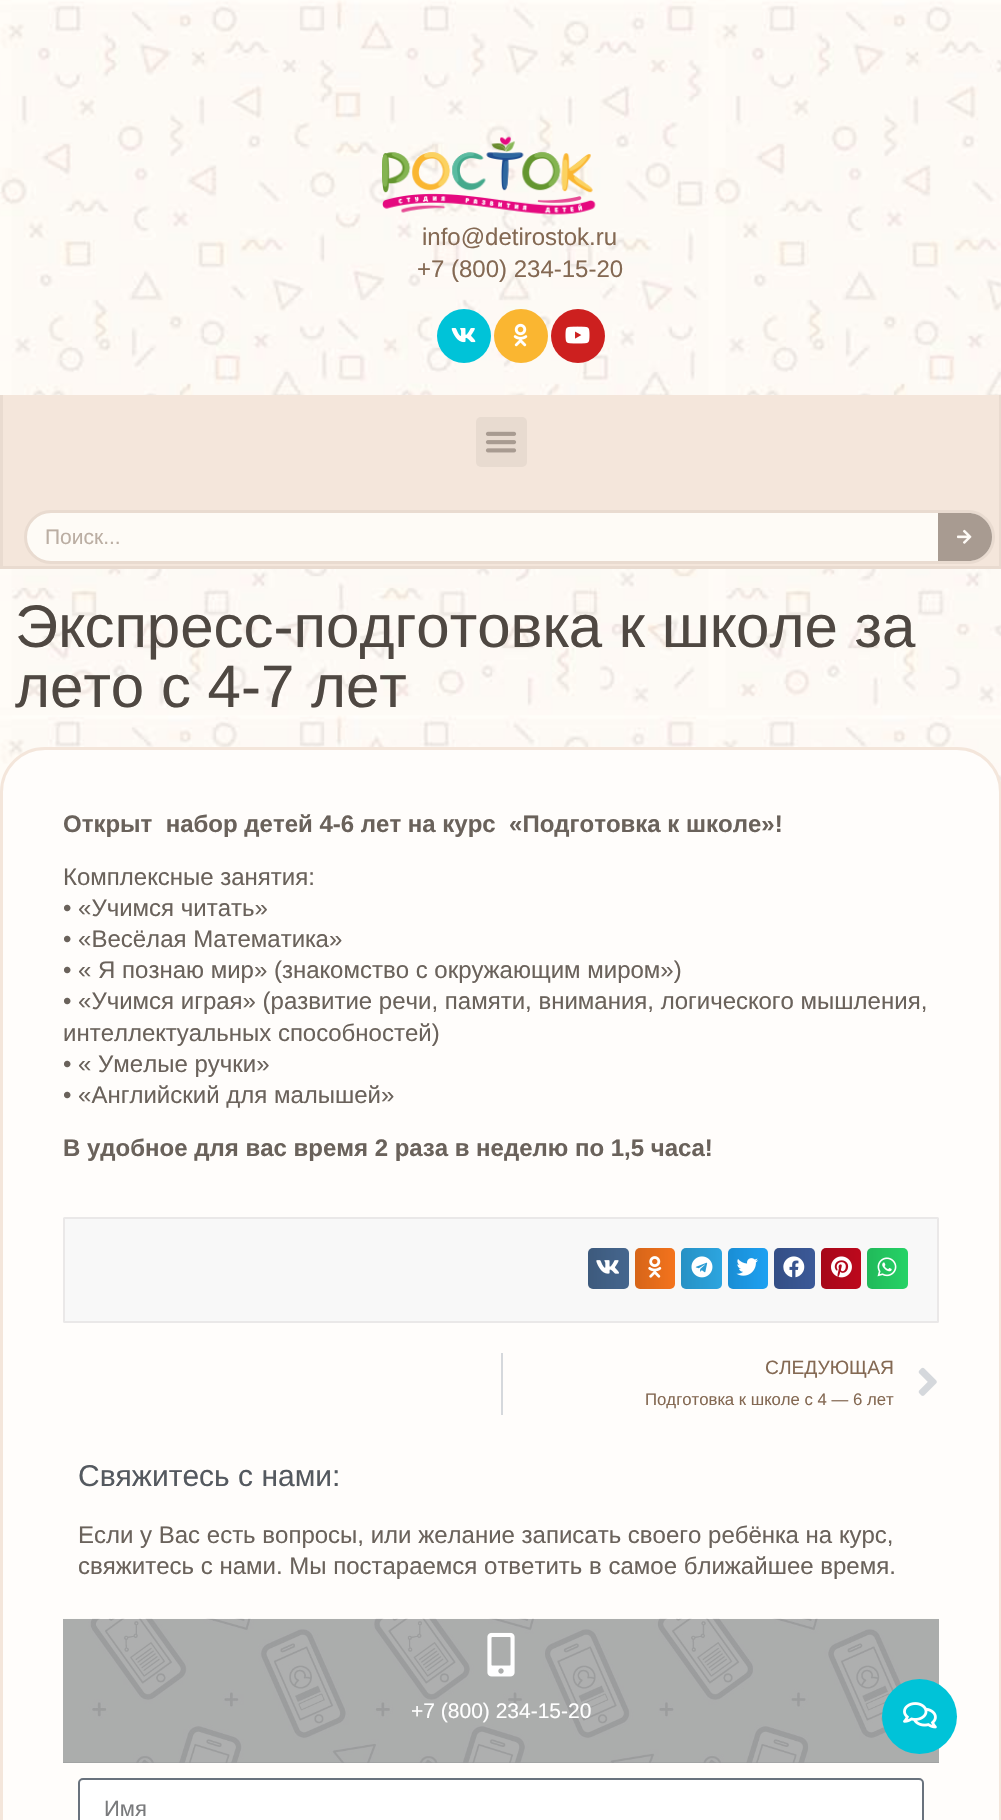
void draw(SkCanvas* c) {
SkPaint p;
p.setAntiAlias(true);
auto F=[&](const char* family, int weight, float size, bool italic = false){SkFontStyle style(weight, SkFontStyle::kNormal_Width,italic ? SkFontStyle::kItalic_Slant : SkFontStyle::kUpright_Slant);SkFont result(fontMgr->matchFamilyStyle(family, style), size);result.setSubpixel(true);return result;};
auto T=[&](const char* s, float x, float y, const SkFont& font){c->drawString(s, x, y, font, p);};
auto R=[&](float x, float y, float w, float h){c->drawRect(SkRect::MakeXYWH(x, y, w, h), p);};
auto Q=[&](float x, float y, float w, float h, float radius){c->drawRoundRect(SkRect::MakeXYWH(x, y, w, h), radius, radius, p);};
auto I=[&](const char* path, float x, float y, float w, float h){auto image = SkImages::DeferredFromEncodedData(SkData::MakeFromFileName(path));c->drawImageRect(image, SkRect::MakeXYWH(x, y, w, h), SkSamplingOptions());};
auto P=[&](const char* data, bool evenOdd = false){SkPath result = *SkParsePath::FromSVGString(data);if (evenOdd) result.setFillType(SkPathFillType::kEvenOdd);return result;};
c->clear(0xffffffff);
I("1.png",0,0,1001,792);
I("2.png",382,136,214,79);
auto f1 = F("Liberation Sans",400,24);
p.setColor(0xff846953);
T("info@detirostok.ru",422,245,f1);
T("+7 (800) 234-15-20",417,277,f1);
p.setColor(0xff00c3d8);
c->drawCircle(464,336,27,p);
I("3.png",451,328,25,15);
p.setColor(0xfffab631);
c->drawCircle(521,336,27,p);
I("4.png",513,323,15,24);
p.setColor(0xffcd201f);
c->drawCircle(578,336,27,p);
I("5.png",565,326,25,18);
p.setColor(0xfff4e6db);
R(3,395,996,171);
p.setColor(0xffe9dbd0);
R(999,395,2,174);
R(0,566,1001,3);
R(0,395,3,174);
p.setColor(0xffe8dbd0);
Q(476,417,51,50,5);
I("6.png",485,431,32,22);
p.setColor(0xfffefbf6);
c->drawRoundRect(SkRect::MakeXYWH(25.5,511.5,968,51),25.5,25.5,p);
p.setStroke(true);
p.setStrokeWidth(3);
p.setColor(0xffe9dbd0);
c->drawRoundRect(SkRect::MakeXYWH(25.5,511.5,968,51),25.5,25.5,p);
auto f2 = F("Liberation Sans",400,21);
p.setStroke(false);
p.setColor(0xffbbaea3);
T("Поиск...",45,544,f2);
p.setColor(0xffa89b91);
c->drawPath(P("M938 513h30c13.5 0 24 10.5 24 24c0 13.5-10.5 24-24 24h-30z"),p);
I("7.png",957,529,15,15);
auto f3 = F("Liberation Sans",400,60);
p.setColor(0xff4f4842);
T("Экспресс-подготовка к школе за",15,647,f3);
T("лето с 4-7 лет",15,707,f3);
p.setColor(0xfffffdfb);
c->drawRoundRect(SkRect::MakeXYWH(1.5,748.5,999,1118),43.5,43.5,p);
p.setStroke(true);
p.setColor(0xfff4e6db);
c->drawRoundRect(SkRect::MakeXYWH(1.5,748.5,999,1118),43.5,43.5,p);
auto f4 = F("Liberation Sans",700,24);
p.setStroke(false);
p.setColor(0xff6a625b);
T("Открыт  набор детей 4-6 лет на курс  «Подготовка к школе»!",63,832,f4);
T("Комплексные занятия:",63,885,f1);
T("• «Учимся читать»",63,916,f1);
T("• «Весёлая Математика»",63,947,f1);
T("• « Я познаю мир» (знакомство с окружающим миром»)",63,978,f1);
T("• «Учимся играя» (развитие речи, памяти, внимания, логического мышления,",63,1009,f1);
T("интеллектуальных способностей)",63,1041,f1);
T("• « Умелые ручки»",63,1072,f1);
T("• «Английский для малышей»",63,1103,f1);
T("В удобное для вас время 2 раза в неделю по 1,5 часа!",63,1156,f4);
p.setColor(0xfff8f8f8);
c->drawRoundRect(SkRect::MakeXYWH(64,1218,874,104),.5,.5,p);
p.setStroke(true);
p.setStrokeWidth(2);
p.setColor(0xffeae8e8);
c->drawRoundRect(SkRect::MakeXYWH(64,1218,874,104),.5,.5,p);
p.setStroke(false);
p.setColor(0xff45668e);
Q(588,1248,41,41,5);
{
const SkColor colors[] = {0x1f000000,0x00000000};
const float stops[] = {0,1};
const SkPoint ends[] = {{588,1268}, {629,1268}};
p.setShader(SkGradientShader::MakeLinear(ends, colors, stops, 2, SkTileMode::kClamp));
p.setAlpha(255);
}
Q(588,1248,41,41,5);
I("8.png",596,1260,23,14);
p.setShader(nullptr);
p.setColor(0xfff4731c);
Q(635,1248,40,41,5);
{
const SkColor colors[] = {0x1f000000,0x00000000};
const float stops[] = {0,1};
const SkPoint ends[] = {{635,1268}, {675,1268}};
p.setShader(SkGradientShader::MakeLinear(ends, colors, stops, 2, SkTileMode::kClamp));
p.setAlpha(255);
}
Q(635,1248,40,41,5);
I("9.png",648,1256,14,22);
p.setShader(nullptr);
p.setColor(0xff2ca5e0);
Q(681,1248,41,41,5);
{
const SkColor colors[] = {0x1f000000,0x00000000};
const float stops[] = {0,1};
const SkPoint ends[] = {{681,1268}, {722,1268}};
p.setShader(SkGradientShader::MakeLinear(ends, colors, stops, 2, SkTileMode::kClamp));
p.setAlpha(255);
}
Q(681,1248,41,41,5);
I("10.png",691,1256,22,22);
p.setShader(nullptr);
p.setColor(0xff1da1f2);
Q(728,1248,40,41,5);
{
const SkColor colors[] = {0x1f000000,0x00000000};
const float stops[] = {0,1};
const SkPoint ends[] = {{728,1268}, {768,1268}};
p.setShader(SkGradientShader::MakeLinear(ends, colors, stops, 2, SkTileMode::kClamp));
p.setAlpha(255);
}
Q(728,1248,40,41,5);
I("11.png",736,1258,22,18);
p.setShader(nullptr);
p.setColor(0xff3b5998);
Q(774,1248,41,41,5);
{
const SkColor colors[] = {0x1f000000,0x00000000};
const float stops[] = {0,1};
const SkPoint ends[] = {{774,1268}, {815,1268}};
p.setShader(SkGradientShader::MakeLinear(ends, colors, stops, 2, SkTileMode::kClamp));
p.setAlpha(255);
}
Q(774,1248,41,41,5);
I("12.png",783,1256,22,22);
p.setShader(nullptr);
p.setColor(0xffbd081c);
Q(821,1248,40,41,5);
{
const SkColor colors[] = {0x1f000000,0x00000000};
const float stops[] = {0,1};
const SkPoint ends[] = {{821,1268}, {861,1268}};
p.setShader(SkGradientShader::MakeLinear(ends, colors, stops, 2, SkTileMode::kClamp));
p.setAlpha(255);
}
Q(821,1248,40,41,5);
I("13.png",831,1256,21,22);
p.setShader(nullptr);
p.setColor(0xff25d366);
Q(867,1248,41,41,5);
{
const SkColor colors[] = {0x1f000000,0x00000000};
const float stops[] = {0,1};
const SkPoint ends[] = {{867,1268}, {908,1268}};
p.setShader(SkGradientShader::MakeLinear(ends, colors, stops, 2, SkTileMode::kClamp));
p.setAlpha(255);
}
Q(867,1248,41,41,5);
I("14.png",877,1257,20,20);
p.setShader(nullptr);
p.setColor(0xffd5d8dc);
R(501,1353,2,62);
auto f5 = F("Liberation Sans",400,19.25);
p.setColor(0xff846953);
T("СЛЕДУЮЩАЯ",765,1374,f5);
auto f6 = F("Liberation Sans",400,16.75);
T("Подготовка к школе с 4 — 6 лет",645,1405,f6);
I("15.png",918,1367,19,29);
auto f7 = F("Liberation Sans",400,30);
p.setColor(0xff54595f);
T("Свяжитесь с нами:",78,1486,f7);
p.setColor(0xff6a625b);
T("Если у Вас есть вопросы, или желание записать своего ребёнка на курс,",78,1543,f1);
T("свяжитесь с нами. Мы постараемся ответить в самое ближайшее время.",78,1574,f1);
p.setColor(0xff98999a);
R(63,1619,876,144);
I("16.png",63,1618,876,145);
I("17.png",487,1632,28,45);
p.setColor(0xffffffff);
T("+7 (800) 234-15-20",411,1718,f2);
c->drawRoundRect(SkRect::MakeXYWH(79,1779,844,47),4,4,p);
p.setStroke(true);
p.setColor(0xff69727d);
c->drawRoundRect(SkRect::MakeXYWH(79,1779,844,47),4,4,p);
auto f8 = F("Liberation Sans",400,22);
p.setStroke(false);
p.setColor(0xff797a7c);
T("Имя",104,1816,f8);
p.setColor(0xff00c3d8);
c->drawCircle(919.5,1716.5,37.5,p);
I("18.png",903,1702,34,27);
}
